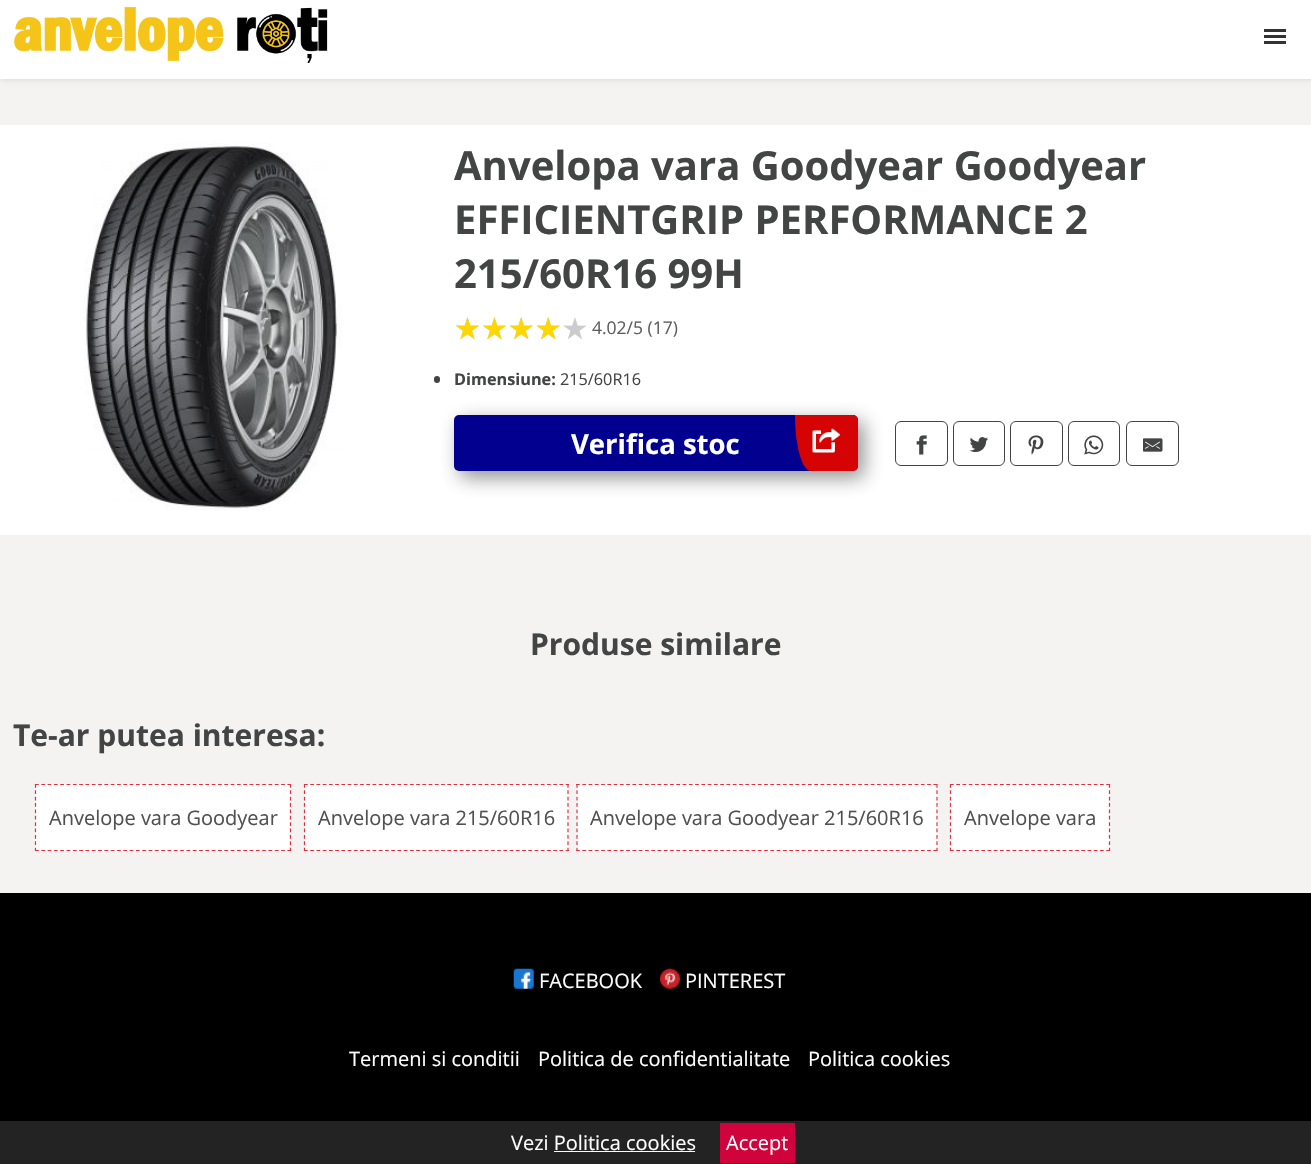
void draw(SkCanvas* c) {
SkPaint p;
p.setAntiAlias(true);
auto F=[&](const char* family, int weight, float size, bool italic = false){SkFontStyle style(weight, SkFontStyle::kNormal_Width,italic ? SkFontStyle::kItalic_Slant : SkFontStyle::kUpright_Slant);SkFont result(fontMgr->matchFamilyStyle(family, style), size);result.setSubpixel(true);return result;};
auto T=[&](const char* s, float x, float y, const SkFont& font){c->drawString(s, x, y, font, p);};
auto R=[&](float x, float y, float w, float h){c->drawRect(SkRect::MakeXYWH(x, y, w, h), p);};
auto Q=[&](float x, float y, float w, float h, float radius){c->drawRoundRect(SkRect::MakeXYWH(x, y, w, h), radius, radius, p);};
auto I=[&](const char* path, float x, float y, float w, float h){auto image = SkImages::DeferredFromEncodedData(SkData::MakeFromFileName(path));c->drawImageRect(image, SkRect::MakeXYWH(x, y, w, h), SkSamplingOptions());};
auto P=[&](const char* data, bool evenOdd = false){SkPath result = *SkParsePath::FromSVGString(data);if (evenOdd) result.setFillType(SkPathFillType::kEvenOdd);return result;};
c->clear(0xfff5f2f2);
p.setColor(0x1a000000);
p.setMaskFilter(SkMaskFilter::MakeBlur(kNormal_SkBlurStyle, 2.5));
c->drawRect(SkRect::MakeXYWH(1,1,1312,79),p);
p.setMaskFilter(nullptr);
p.setColor(0xffffffff);
R(0,0,1311,79);
I("1.png",14,7,314,56);
p.setColor(0xff333333);
R(1264,35,22,3);
R(1264,29,22,3);
R(1264,41,22,3);
p.setColor(0xffffffff);
R(0,125,1311,410);
I("2.png",84,143,259,368);
auto f1 = F("Open Sans",700,40);
p.setColor(0xff434444);
T("Anvelopa vara Goodyear Goodyear",454,180,f1);
T("EFFICIENTGRIP PERFORMANCE 2",454,234,f1);
T("215/60R16 99H",454,288,f1);
auto f2 = F("DejaVu Sans",400,30);
p.setColor(0xffcccccc);
T("★★★★★",454,339,f2);
p.setColor(0xffffd700);
T("★★★★",454,339,f2);
auto f3 = F("Open Sans",400,17.5);
p.setColor(0xff5d5d5d);
T("4.02/5 (17)",592,334,f3);
p.setColor(0xff434444);
Q(434,376,6,7,3);
auto f4 = F("Open Sans",700,16.25);
T("Dimensiune:",454,385,f4);
auto f5 = F("Open Sans",400,16.25);
T("215/60R16",560,385,f5);
p.setColor(0x80272727);
p.setMaskFilter(SkMaskFilter::MakeBlur(kNormal_SkBlurStyle, 9.5));
c->drawRoundRect(SkRect::MakeXYWH(460,421,404,57),5,5,p);
p.setMaskFilter(nullptr);
p.setColor(0xff02008f);
Q(454,415,404,56,5);
auto f6 = F("Open Sans",700,27.5);
p.setColor(0xffffffff);
T("Verifica stoc",571,454,f6);
p.setColor(0xffd50303);
c->drawPath(P("M795 415h57c3 0 6 2 6 5v46c0 3-3 5-6 5h-41c-9 0-16-25-16-56z"),p);
I("3.png",812,428,28,25);
p.setStroke(true);
p.setStrokeWidth(1);
p.setColor(0xff434444);
c->drawRoundRect(SkRect::MakeXYWH(895.5,421.5,52,44),5.5,5.5,p);
I("4.png",916,435,11,20);
c->drawRoundRect(SkRect::MakeXYWH(953.5,421.5,51,44),5.5,5.5,p);
I("5.png",969,437,20,16);
c->drawRoundRect(SkRect::MakeXYWH(1010.5,421.5,52,44),5.5,5.5,p);
I("6.png",1028,435,16,20);
c->drawRoundRect(SkRect::MakeXYWH(1068.5,421.5,51,44),5.5,5.5,p);
I("7.png",1084,435,20,20);
c->drawRoundRect(SkRect::MakeXYWH(1126.5,421.5,52,44),5.5,5.5,p);
I("8.png",1143,438,20,14);
auto f7 = F("Open Sans",700,30);
p.setStroke(false);
T("Produse similare",530,655,f7);
T("Te-ar putea interesa:",13,746,f7);
p.setColor(0xffffffff);
R(35,784,256,67);
p.setStroke(true);
p.setStrokeWidth(1.2);
p.setColor(0xffe62e3a);
p.setPathEffect(SkDashPathEffect::Make({{3.75f,2.56f}}, 0));
c->drawPath(P("M35 784.5h256"),p);
p.setPathEffect(nullptr);
p.setPathEffect(SkDashPathEffect::Make({{3.75f,2.62f}}, 0));
c->drawPath(P("M290.5 784v67"),p);
p.setPathEffect(nullptr);
p.setPathEffect(SkDashPathEffect::Make({{3.75f,2.56f}}, 0));
c->drawPath(P("M35 850.5h256"),p);
p.setPathEffect(nullptr);
p.setPathEffect(SkDashPathEffect::Make({{3.75f,2.62f}}, 0));
c->drawPath(P("M35.5 784v67"),p);
p.setPathEffect(nullptr);
auto f8 = F("Open Sans",400,20);
p.setStroke(false);
p.setColor(0xff515050);
T("Anvelope vara Goodyear",49,825,f8);
p.setColor(0xffffffff);
R(304,784,265,67);
p.setStroke(true);
p.setColor(0xffe62e3a);
p.setPathEffect(SkDashPathEffect::Make({{3.75f,2.48f}}, 0));
c->drawPath(P("M304 784.5h265"),p);
p.setPathEffect(nullptr);
p.setPathEffect(SkDashPathEffect::Make({{3.75f,2.62f}}, 0));
c->drawPath(P("M568 784v67"),p);
p.setPathEffect(nullptr);
p.setPathEffect(SkDashPathEffect::Make({{3.75f,2.48f}}, 0));
c->drawPath(P("M304 850.5h265"),p);
p.setPathEffect(nullptr);
p.setPathEffect(SkDashPathEffect::Make({{3.75f,2.62f}}, 0));
c->drawPath(P("M304.5 784v67"),p);
p.setPathEffect(nullptr);
p.setStroke(false);
p.setColor(0xff515050);
T("Anvelope vara 215/60R16",318,825,f8);
p.setColor(0xffffffff);
R(576,784,362,67);
p.setStroke(true);
p.setColor(0xffe62e3a);
p.setPathEffect(SkDashPathEffect::Make({{3.75f,2.52f}}, 0));
c->drawPath(P("M576 784.5h361.5"),p);
p.setPathEffect(nullptr);
p.setPathEffect(SkDashPathEffect::Make({{3.75f,2.62f}}, 0));
c->drawPath(P("M937 784v67"),p);
p.setPathEffect(nullptr);
p.setPathEffect(SkDashPathEffect::Make({{3.75f,2.52f}}, 0));
c->drawPath(P("M576 850.5h361.5"),p);
p.setPathEffect(nullptr);
p.setPathEffect(SkDashPathEffect::Make({{3.75f,2.62f}}, 0));
c->drawPath(P("M577 784v67"),p);
p.setPathEffect(nullptr);
p.setStroke(false);
p.setColor(0xff515050);
T("Anvelope vara Goodyear 215/60R16",590,825,f8);
p.setColor(0xffffffff);
R(950,784,160,67);
p.setStroke(true);
p.setColor(0xffe62e3a);
p.setPathEffect(SkDashPathEffect::Make({{3.75f,2.5f}}, 0));
c->drawPath(P("M950 784.5h160"),p);
p.setPathEffect(nullptr);
p.setPathEffect(SkDashPathEffect::Make({{3.75f,2.62f}}, 0));
c->drawPath(P("M1109.5 784v67"),p);
p.setPathEffect(nullptr);
p.setPathEffect(SkDashPathEffect::Make({{3.75f,2.5f}}, 0));
c->drawPath(P("M950 850.5h160"),p);
p.setPathEffect(nullptr);
p.setPathEffect(SkDashPathEffect::Make({{3.75f,2.62f}}, 0));
c->drawPath(P("M950.5 784v67"),p);
p.setPathEffect(nullptr);
p.setStroke(false);
p.setColor(0xff515050);
T("Anvelope vara",964,825,f8);
p.setColor(0xff000000);
R(0,893,1311,228);
I("9.png",513,968,21,21);
p.setColor(0xffffffff);
T("FACEBOOK",539,988,f8);
I("10.png",660,968,20,21);
T("PINTEREST",685,988,f8);
T("Termeni si conditii",349,1066,f8);
T("Politica de confidentialitate",538,1066,f8);
T("Politica cookies",808,1066,f8);
p.setColor(0xff232323);
R(0,1121,1311,43);
p.setColor(0xffffffff);
T("Vezi Politica cookies",511,1150,f8);
R(554,1151,141,1);
p.setColor(0xffd0033c);
R(720,1123,75,40);
p.setColor(0xffffffff);
T("Accept",726,1150,f8);
}
